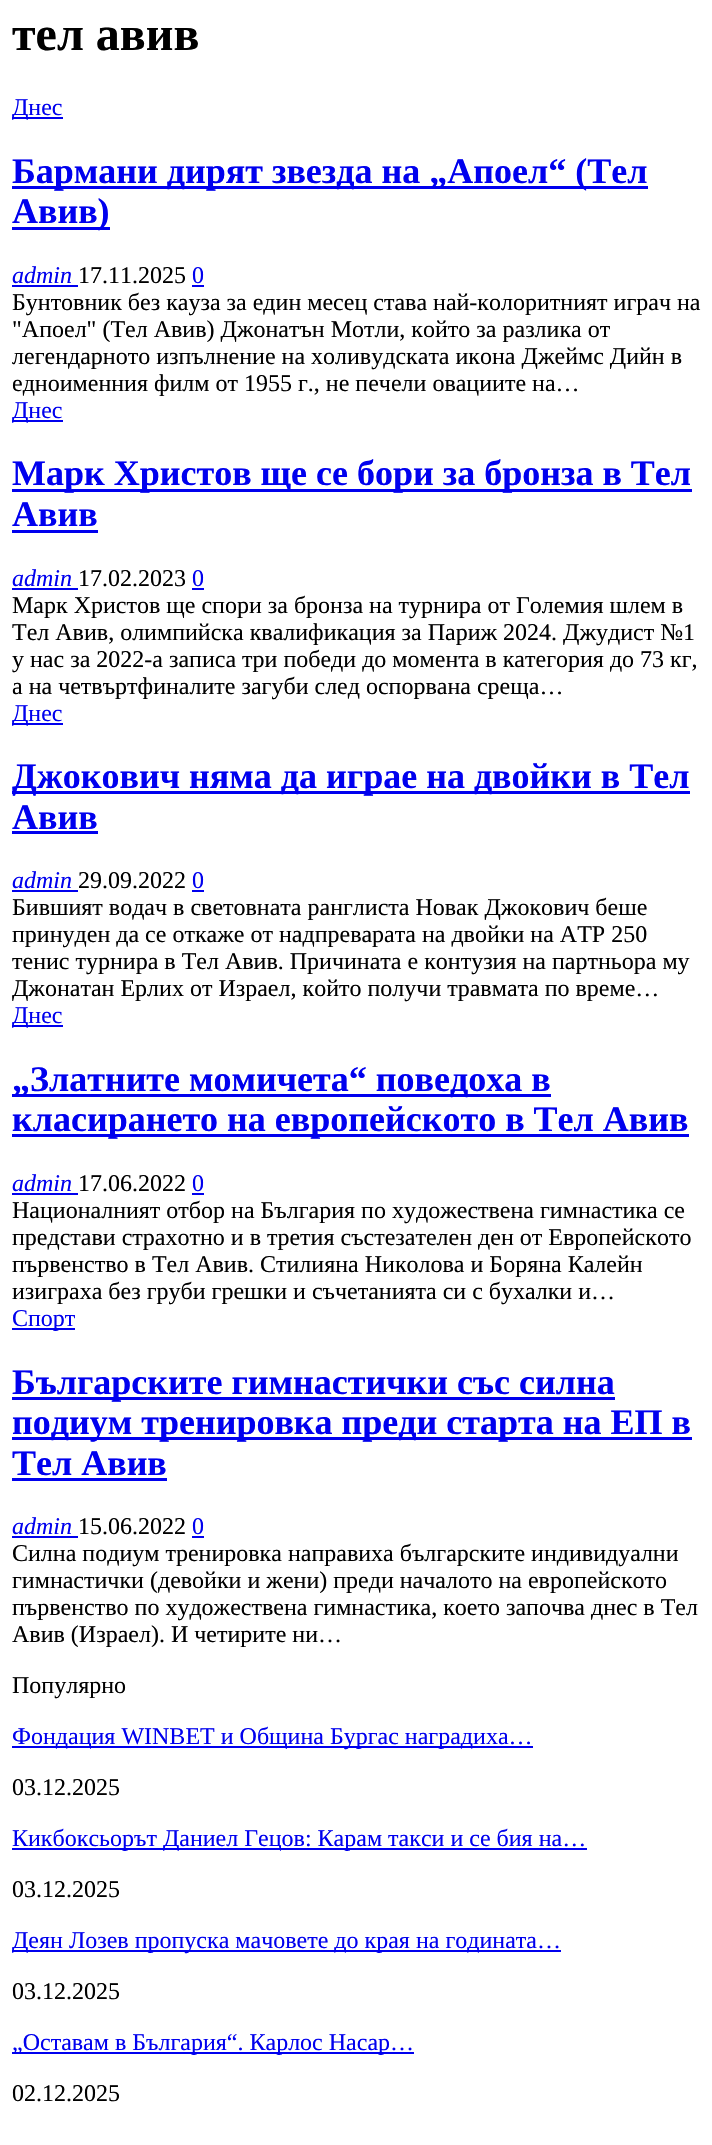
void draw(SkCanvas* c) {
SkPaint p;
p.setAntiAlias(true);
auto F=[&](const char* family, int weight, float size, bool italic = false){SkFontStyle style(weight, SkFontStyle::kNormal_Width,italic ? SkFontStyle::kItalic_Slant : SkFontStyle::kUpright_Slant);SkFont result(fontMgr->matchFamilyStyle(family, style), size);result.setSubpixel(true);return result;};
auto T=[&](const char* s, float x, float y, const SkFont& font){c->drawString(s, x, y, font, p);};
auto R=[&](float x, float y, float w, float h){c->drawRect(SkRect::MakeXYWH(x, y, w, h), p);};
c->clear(0xffffffff);
auto f1 = F("Liberation Serif",700,48);
p.setColor(0xff000000);
T("тел авив",12,50,f1);
p.setColor(0xff0000ee);
R(12,117,51,2);
auto f2 = F("Liberation Serif",400,24);
T("Днес",12,115,f2);
R(12,186,636,3);
auto f3 = F("Liberation Serif",700,36);
T("Бармани дирят звезда на „Апоел“ (Тел",12,183,f3);
R(12,227,98,3);
T("Авив)",12,223,f3);
auto f4 = F("Liberation Serif",400,24,true);
T("admin",12,283,f4);
R(12,285,66,2);
p.setColor(0xff000000);
T("17.11.2025",78,283,f2);
p.setColor(0xff0000ee);
T("0",192,283,f2);
R(192,285,12,2);
p.setColor(0xff000000);
T("Бунтовник без кауза за един месец става най-колоритният играч на",12,310,f2);
T("\"Апоел\" (Тел Авив) Джонатън Мотли, който за разлика от",12,337,f2);
T("легендарното изпълнение на холивудската икона Джеймс Дийн в",12,364,f2);
T("едноименния филм от 1955 г., не печели овациите на…",12,391,f2);
p.setColor(0xff0000ee);
R(12,420,51,2);
T("Днес",12,418,f2);
R(12,489,680,3);
T("Марк Христов ще се бори за бронза в Тел",12,485,f3);
T("Авив",12,526,f3);
R(12,530,86,3);
T("admin",12,586,f4);
R(12,588,66,2);
p.setColor(0xff000000);
T("17.02.2023",78,586,f2);
p.setColor(0xff0000ee);
T("0",192,586,f2);
R(192,588,12,2);
p.setColor(0xff000000);
T("Марк Христов ще спори за бронза на турнира от Големия шлем в",12,613,f2);
T("Тел Авив, олимпийска квалификация за Париж 2024. Джудист №1",12,640,f2);
T("у нас за 2022-а записа три победи до момента в категория до 73 кг,",12,667,f2);
T("а на четвъртфиналите загуби след оспорвана среща…",12,694,f2);
p.setColor(0xff0000ee);
R(12,723,51,2);
T("Днес",12,721,f2);
R(12,791,678,3);
T("Джокович няма да играе на двойки в Тел",12,788,f3);
T("Авив",12,829,f3);
R(12,831,86,3);
T("admin",12,888,f4);
R(12,890,66,2);
p.setColor(0xff000000);
T("29.09.2022",78,888,f2);
p.setColor(0xff0000ee);
T("0",192,888,f2);
R(192,890,12,2);
p.setColor(0xff000000);
T("Бившият водач в световната ранглиста Новак Джокович беше",12,915,f2);
T("принуден да се откаже от надпреварата на двойки на АТР 250",12,942,f2);
T("тенис турнира в Тел Авив. Причината е контузия на партньора му",12,969,f2);
T("Джонатан Ерлих от Израел, който получи травмата по време…",12,996,f2);
p.setColor(0xff0000ee);
R(12,1025,51,2);
T("Днес",12,1023,f2);
R(12,1094,539,3);
T("„Златните момичета“ поведоха в",12,1091,f3);
R(12,1134,677,3);
T("класирането на европейското в Тел Авив",12,1131,f3);
T("admin",12,1191,f4);
R(12,1193,66,2);
p.setColor(0xff000000);
T("17.06.2022",78,1191,f2);
p.setColor(0xff0000ee);
T("0",192,1191,f2);
R(192,1193,12,2);
p.setColor(0xff000000);
T("Националният отбор на България по художествена гимнастика се",12,1218,f2);
T("представи страхотно и в третия състезателен ден от Европейското",12,1245,f2);
T("първенство в Тел Авив. Стилияна Николова и Боряна Калейн",12,1272,f2);
T("изиграха без груби грешки и съчетанията си с бухалки и…",12,1299,f2);
p.setColor(0xff0000ee);
R(12,1328,63,2);
T("Спорт",12,1326,f2);
R(12,1397,603,3);
T("Българските гимнастички със силна",12,1394,f3);
R(12,1437,680,3);
T("подиум тренировка преди старта на ЕП в",12,1434,f3);
T("Тел Авив",12,1475,f3);
R(12,1478,155,3);
T("admin",12,1534,f4);
R(12,1536,66,2);
p.setColor(0xff000000);
T("15.06.2022",78,1534,f2);
p.setColor(0xff0000ee);
T("0",192,1534,f2);
R(192,1536,12,2);
p.setColor(0xff000000);
T("Силна подиум тренировка направиха българските индивидуални",12,1561,f2);
T("гимнастички (девойки и жени) преди началото на европейското",12,1588,f2);
T("първенство по художествена гимнастика, което започва днес в Тел",12,1615,f2);
T("Авив (Израел). И четирите ни…",12,1642,f2);
T("Популярно",12,1693,f2);
p.setColor(0xff0000ee);
R(12,1746,521,2);
T("Фондация WINBET и Община Бургас наградиха…",12,1744,f2);
p.setColor(0xff000000);
T("03.12.2025",12,1795,f2);
p.setColor(0xff0000ee);
R(12,1848,575,2);
T("Кикбоксьорът Даниел Гецов: Карам такси и се бия на…",12,1846,f2);
p.setColor(0xff000000);
T("03.12.2025",12,1897,f2);
p.setColor(0xff0000ee);
R(12,1950,549,2);
T("Деян Лозев пропуска мачовете до края на годината…",12,1948,f2);
p.setColor(0xff000000);
T("03.12.2025",12,1999,f2);
p.setColor(0xff0000ee);
R(12,2052,402,2);
T("„Оставам в България“. Карлос Насар…",12,2050,f2);
p.setColor(0xff000000);
T("02.12.2025",12,2101,f2);
}
